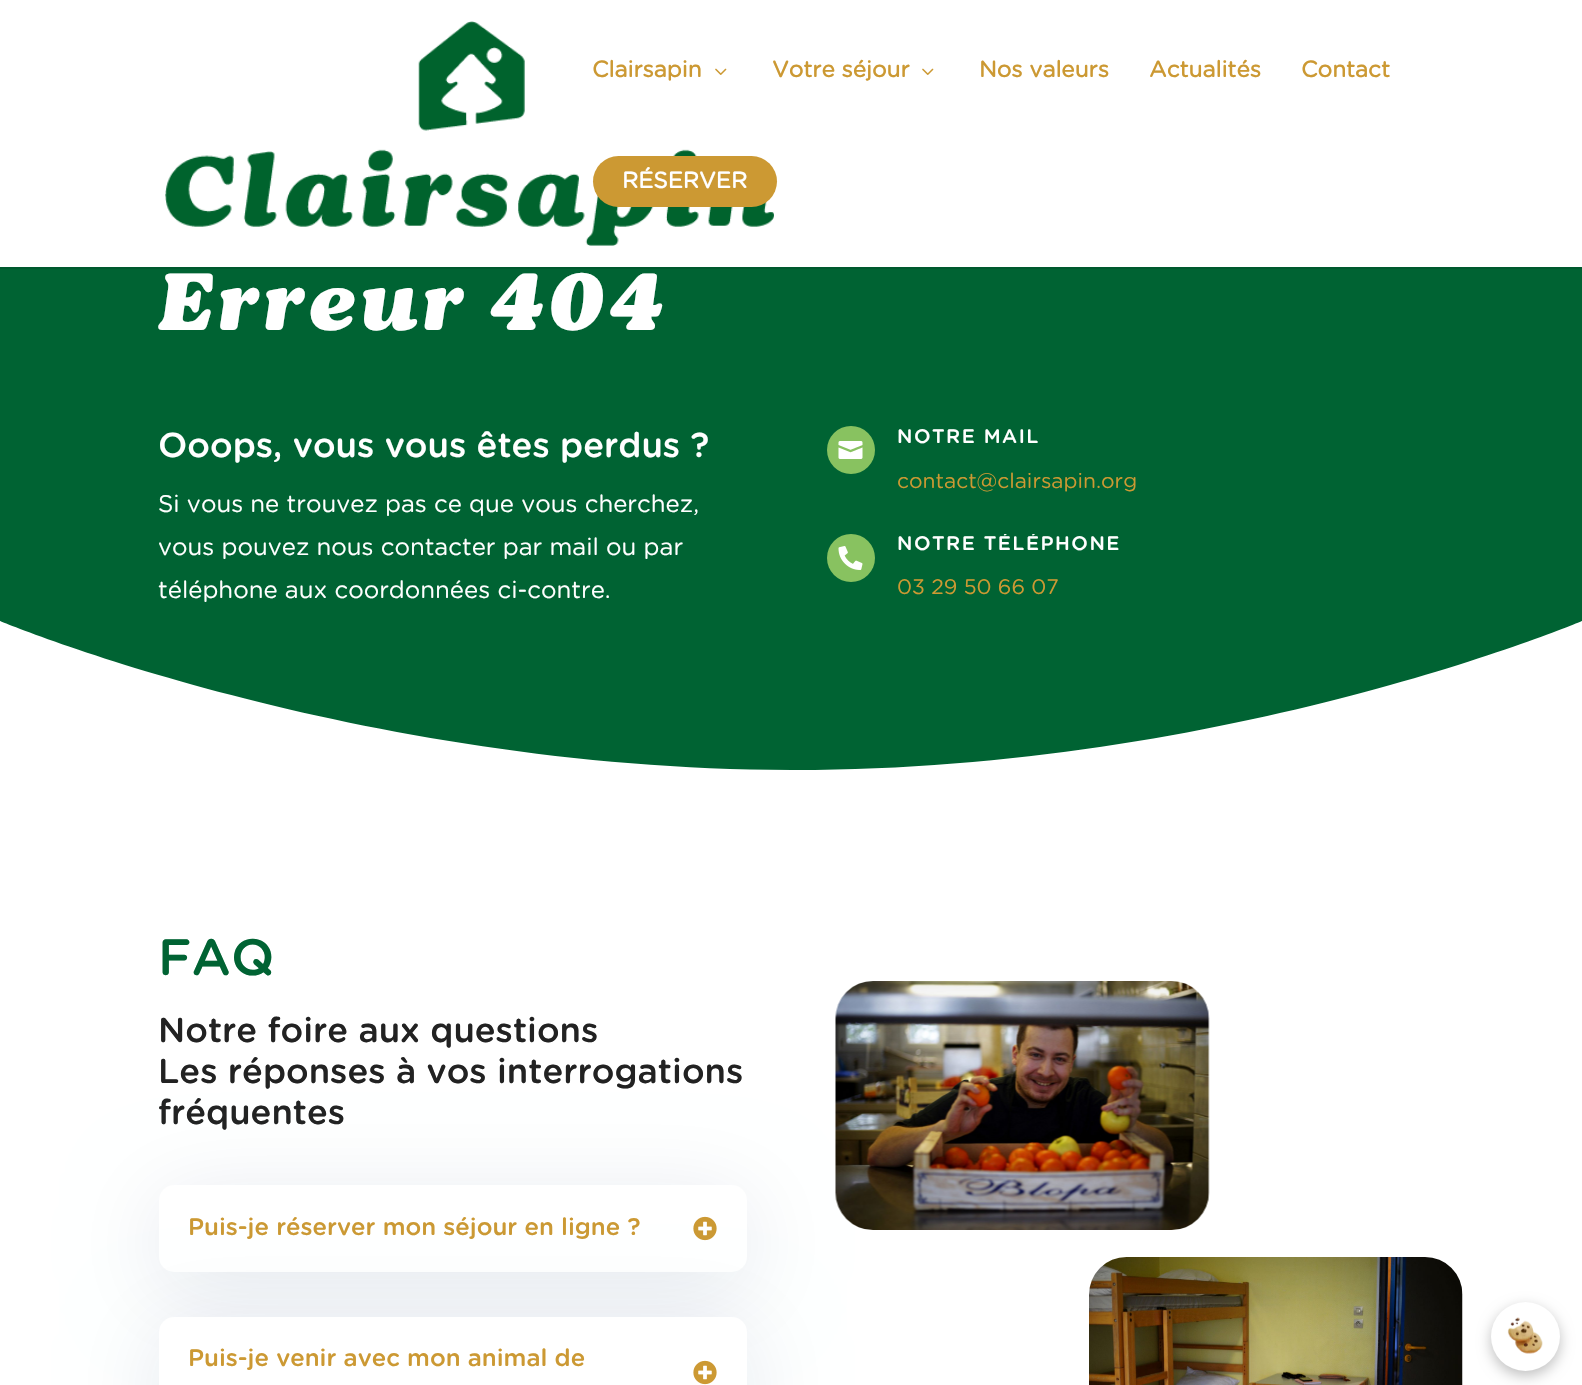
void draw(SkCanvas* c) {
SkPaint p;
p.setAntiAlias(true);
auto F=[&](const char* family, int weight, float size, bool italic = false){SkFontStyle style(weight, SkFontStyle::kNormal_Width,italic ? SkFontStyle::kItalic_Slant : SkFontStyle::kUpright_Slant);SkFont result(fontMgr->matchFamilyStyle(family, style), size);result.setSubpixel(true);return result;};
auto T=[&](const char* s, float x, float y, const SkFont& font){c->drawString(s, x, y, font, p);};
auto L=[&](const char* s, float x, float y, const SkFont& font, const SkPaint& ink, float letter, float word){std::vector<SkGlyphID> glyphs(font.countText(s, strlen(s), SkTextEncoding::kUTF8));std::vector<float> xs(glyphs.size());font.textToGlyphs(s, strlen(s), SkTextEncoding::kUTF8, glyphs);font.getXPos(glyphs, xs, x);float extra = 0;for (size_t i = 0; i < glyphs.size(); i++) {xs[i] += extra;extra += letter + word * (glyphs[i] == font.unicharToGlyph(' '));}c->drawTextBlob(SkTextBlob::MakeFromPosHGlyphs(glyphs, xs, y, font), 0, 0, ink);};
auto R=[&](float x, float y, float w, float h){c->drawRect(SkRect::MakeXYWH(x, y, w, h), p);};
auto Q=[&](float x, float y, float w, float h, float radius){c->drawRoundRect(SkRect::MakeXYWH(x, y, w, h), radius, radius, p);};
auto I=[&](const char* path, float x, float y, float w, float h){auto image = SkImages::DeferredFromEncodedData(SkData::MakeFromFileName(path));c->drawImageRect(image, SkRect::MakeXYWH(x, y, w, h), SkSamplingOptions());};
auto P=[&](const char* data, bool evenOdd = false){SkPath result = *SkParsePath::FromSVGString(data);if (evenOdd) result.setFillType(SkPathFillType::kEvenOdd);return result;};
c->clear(0xffffffff);
p.setColor(0xff00592e);
c->drawPath(P("M0 267v2h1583v-267h-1v265z"),p);
I("1.png",165,21,609,225);
auto f1 = F("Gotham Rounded",700,22.5);
p.setColor(0xffcc9933);
T("Clairsapin",592,77,f1);
I("2.png",715,68,12,7);
T("Votre séjour",772,77,f1);
I("2.png",922,68,12,7);
T("Nos valeurs",979,77,f1);
T("Actualités",1149,77,f1);
T("Contact",1301,77,f1);
Q(593,156,184,51,25.5);
p.setColor(0xffffffff);
T("RÉSERVER",622,188,f1);
p.setColor(0xff006333);
R(0,269,1582,501);
auto f2 = F("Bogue",900,82.5,true);
p.setColor(0xffffffff);
L("Erreur 404",158,330,f2,p,4.5,0);
auto f3 = F("Gotham Rounded",500,34.5);
T("Ooops, vous vous êtes perdus ?",158,457,f3);
auto f4 = F("Gotham Rounded",400,24);
T("Si vous ne trouvez pas ce que vous cherchez,",158,512,f4);
T("vous pouvez nous contacter par mail ou par",158,555,f4);
T("téléphone aux coordonnées ci-contre.",158,598,f4);
p.setColor(0xff88c260);
c->drawCircle(851,450,24,p);
I("3.png",838,441,25,18);
auto f5 = F("Gotham Rounded",500,19.5);
p.setColor(0xffffffff);
L("NOTRE MAIL",897,443,f5,p,1.5,0);
auto f6 = F("Gotham Rounded",400,21);
p.setColor(0xffcc9933);
T("contact@clairsapin.org",897,488,f6);
p.setColor(0xff88c260);
c->drawCircle(851,558,24,p);
I("4.png",838,546,25,24);
c->save();
c->clipPath(P("M842 534h567c8.5 0 15 6.5 15 15v42c0 8.5-6.5 15-15 15h-567c-8.5 0-15-6.5-15-15v-42c0-8.5 6.5-15 15-15z"),true);
p.setColor(0xffffffff);
L("NOTRE TÉLÉPHONE",897,550,f5,p,1.5,0);
c->restore();
p.setColor(0xffcc9933);
T("03 29 50 66 07",897,594,f6);
p.setColor(0xffffffff);
c->drawPath(P("M1582 771v-150c0 0-354 150-791 149c-437-1-791-149-791-149v150z"),p);
auto f7 = F("Gotham Rounded",500,51);
p.setColor(0xff006333);
T("FAQ",158,975,f7);
p.setColor(0xff222222);
T("Notre foire aux questions",158,1042,f3);
T("Les réponses à vos interrogations",158,1083,f3);
T("fréquentes",158,1124,f3);
p.setColor(0x1a01215c);
p.setMaskFilter(SkMaskFilter::MakeBlur(kNormal_SkBlurStyle, 45));
c->drawRoundRect(SkRect::MakeXYWH(159,1200,588,87),15,15,p);
p.setMaskFilter(nullptr);
p.setColor(0xffffffff);
Q(159,1185,588,87,15);
auto f8 = F("Gotham Rounded",500,24);
p.setColor(0xffcc9933);
T("Puis-je réserver mon séjour en ligne ?",188,1235,f8);
I("5.png",693,1216,24,25);
p.setColor(0x1a01215c);
p.setMaskFilter(SkMaskFilter::MakeBlur(kNormal_SkBlurStyle, 45));
c->drawRoundRect(SkRect::MakeXYWH(159,1332,588,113),15,15,p);
p.setMaskFilter(nullptr);
p.setColor(0xffffffff);
Q(159,1317,588,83,15);
p.setColor(0xffcc9933);
T("Puis-je venir avec mon animal de",188,1366,f8);
I("5.png",693,1360,24,25);
I("6.png",835,981,375,249);
I("7.png",1089,1257,374,128);
p.setColor(0x40000000);
p.setMaskFilter(SkMaskFilter::MakeBlur(kNormal_SkBlurStyle, 7));
c->drawRoundRect(SkRect::MakeXYWH(1491,1307,69,69),34.5,34.5,p);
p.setMaskFilter(nullptr);
p.setColor(0xffffffff);
c->drawCircle(1525.5,1336.5,34.5,p);
I("8.png",1507,1317,36,37);
}
